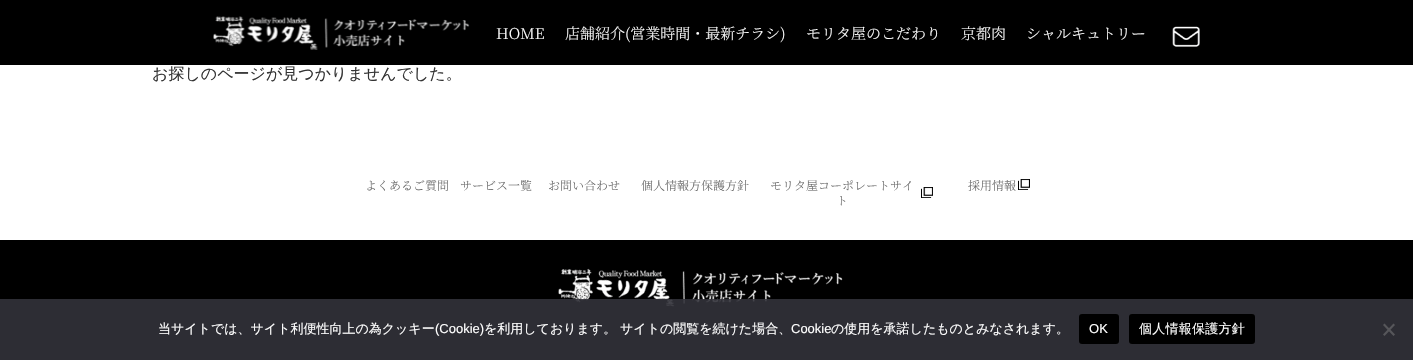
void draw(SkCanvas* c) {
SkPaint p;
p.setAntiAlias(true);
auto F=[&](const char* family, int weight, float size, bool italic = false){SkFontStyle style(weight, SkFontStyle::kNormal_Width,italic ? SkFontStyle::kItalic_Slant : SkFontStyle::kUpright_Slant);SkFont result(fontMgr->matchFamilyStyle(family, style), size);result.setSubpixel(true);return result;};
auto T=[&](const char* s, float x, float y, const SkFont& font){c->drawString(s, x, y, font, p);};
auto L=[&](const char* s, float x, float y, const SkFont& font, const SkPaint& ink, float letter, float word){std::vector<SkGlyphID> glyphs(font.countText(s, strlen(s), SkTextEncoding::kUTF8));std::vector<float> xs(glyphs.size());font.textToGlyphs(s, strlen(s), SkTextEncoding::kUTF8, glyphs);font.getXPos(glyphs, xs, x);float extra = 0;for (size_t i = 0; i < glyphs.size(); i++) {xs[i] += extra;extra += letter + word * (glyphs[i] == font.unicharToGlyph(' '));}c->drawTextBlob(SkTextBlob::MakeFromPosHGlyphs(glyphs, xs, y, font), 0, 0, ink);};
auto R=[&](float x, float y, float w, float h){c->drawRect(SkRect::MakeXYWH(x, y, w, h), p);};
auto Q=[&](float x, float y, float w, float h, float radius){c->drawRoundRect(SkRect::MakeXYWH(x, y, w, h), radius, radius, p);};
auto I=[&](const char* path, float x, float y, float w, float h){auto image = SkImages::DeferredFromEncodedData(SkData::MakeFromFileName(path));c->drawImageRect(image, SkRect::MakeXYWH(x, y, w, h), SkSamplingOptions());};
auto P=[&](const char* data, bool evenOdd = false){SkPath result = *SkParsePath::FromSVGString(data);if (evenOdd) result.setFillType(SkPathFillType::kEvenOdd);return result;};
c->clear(0xffffffff);
p.setColor(0xff000000);
R(0,0,1413,65);
I("1.png",213,16,257,34);
auto f1 = F("Noto Serif JP",300,15);
p.setColor(0xffffffff);
T("HOME",496,39,f1);
T("店舗紹介(営業時間・最新チラシ)",565,39,f1);
T("モリタ屋のこだわり",806,39,f1);
T("京都肉",961,39,f1);
T("シャルキュトリー",1026,39,f1);
I("2.png",1172,26,28,21);
auto f2 = F("WenQuanYi Zen Hei",500,16);
p.setColor(0xff333333);
T("お探しのページが見つかりませんでした。",152,79,f2);
auto f3 = F("Noto Serif JP",300,12);
p.setColor(0xff666666);
T("よくあるご質問",365,190,f3);
T("サービス一覧",460,190,f3);
T("お問い合わせ",548,190,f3);
T("個人情報方保護方針",641,190,f3);
T("モリタ屋コーポレートサイ",770,190,f3);
I("3.png",921,187,12,11);
T("ト",836,205,f3);
T("採用情報",968,190,f3);
I("4.png",1018,179,12,11);
p.setColor(0xff000000);
R(0,240,1413,120);
I("5.png",558,268,285,39);
p.setColor(0xe332323a);
R(0,299,1413,61);
auto f4 = F("WenQuanYi Zen Hei",500,13);
p.setColor(0xffffffff);
T("当サイトでは、サイト利便性向上の為クッキー",158,333,f4);
auto f5 = F("Liberation Sans",400,13);
T("(Cookie)",435,333,f5);
T("を利用しております。 サイトの閲覧を続けた場合、",484,333,f4);
T("Cookie",791,333,f5);
T("の使用を承諾したものとみなされます。",831,333,f4);
p.setColor(0xff000000);
Q(1079,314,40,30,3);
p.setColor(0xffffffff);
L("OK",1089,333,f5,p,.25,0);
p.setColor(0xff000000);
Q(1129,314,126,30,3);
p.setColor(0xffffffff);
L("個人情報保護方針",1139,333,f4,p,.25,0);
p.setColor(0xff56565a);
c->drawPath(P("M1393.5 323.5l1.5 1.5l-10.5 11l-1.5-1.5z"),p);
c->drawPath(P("M1383 325l1.5-1.5l10.5 11l-1.5 1.5z"),p);
}
